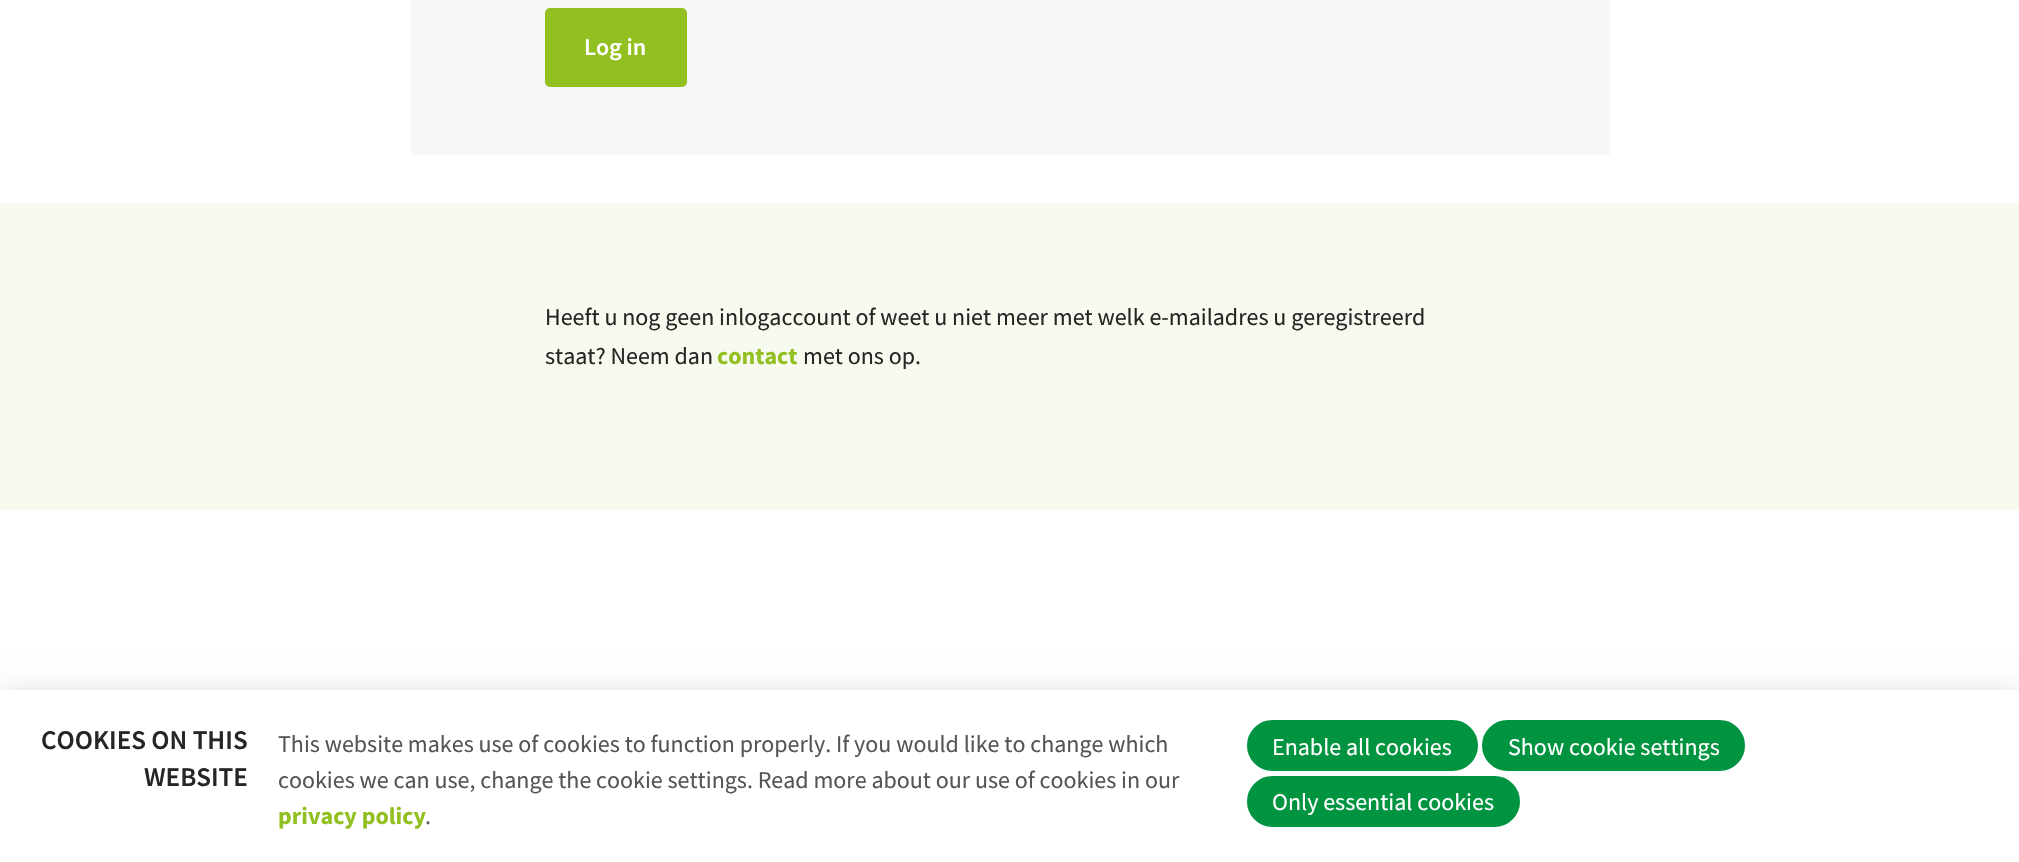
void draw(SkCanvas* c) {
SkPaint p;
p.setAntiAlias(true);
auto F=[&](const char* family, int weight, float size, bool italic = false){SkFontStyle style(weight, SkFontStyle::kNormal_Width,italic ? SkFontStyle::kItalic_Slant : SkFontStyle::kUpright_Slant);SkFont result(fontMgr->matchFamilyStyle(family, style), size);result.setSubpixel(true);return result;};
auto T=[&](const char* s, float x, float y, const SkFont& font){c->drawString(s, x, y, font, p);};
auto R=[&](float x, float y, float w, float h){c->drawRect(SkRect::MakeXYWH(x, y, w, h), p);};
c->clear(0xffffffff);
p.setColor(0xfff8f8f8);
R(410,0,1200,155);
p.setColor(0xff92c020);
c->drawRoundRect(SkRect::MakeXYWH(546,9,140,77),4,4,p);
p.setStroke(true);
p.setStrokeWidth(2);
c->drawRoundRect(SkRect::MakeXYWH(546,9,140,77),4,4,p);
auto f1 = F("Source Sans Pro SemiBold",600,24);
p.setStroke(false);
p.setColor(0xffffffff);
T("Log in",584,55,f1);
p.setColor(0xfff7faee);
R(0,203,2019,307);
auto f2 = F("Source Sans Pro",400,24);
p.setColor(0xff262626);
T("Heeft u nog geen inlogaccount of weet u niet meer met welk e-mailadres u geregistreerd",545,325,f2);
T("staat? Neem dan",545,364,f2);
auto f3 = F("Source Sans Pro",700,24);
p.setColor(0xff92c020);
T("contact",717,364,f3);
p.setColor(0xff262626);
T("met ons op.",803,364,f2);
p.setColor(0x33000000);
p.setMaskFilter(SkMaskFilter::MakeBlur(kNormal_SkBlurStyle, 15));
c->drawRect(SkRect::MakeXYWH(0,698,2019,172),p);
p.setMaskFilter(nullptr);
p.setColor(0xffffffff);
R(0,690,2019,172);
auto f4 = F("Source Sans Pro SemiBold",600,27);
p.setColor(0xff262626);
T("COOKIES ON THIS",41,749,f4);
T("WEBSITE",144,786,f4);
p.setColor(0xff555555);
T("This website makes use of cookies to function properly. If you would like to change which",278,752,f2);
T("cookies we can use, change the cookie settings. Read more about our use of cookies in our",278,788,f2);
p.setColor(0xff92c020);
T("privacy policy",278,824,f3);
p.setColor(0xff555555);
T(".",425,824,f2);
p.setColor(0xff009440);
c->drawRoundRect(SkRect::MakeXYWH(1248,721,229,49),24.5,24.5,p);
p.setStroke(true);
c->drawRoundRect(SkRect::MakeXYWH(1248,721,229,49),24.5,24.5,p);
p.setStroke(false);
p.setColor(0xffffffff);
T("Enable all cookies",1272,755,f2);
p.setColor(0xff009440);
c->drawRoundRect(SkRect::MakeXYWH(1483,721,261,49),24.5,24.5,p);
p.setStroke(true);
c->drawRoundRect(SkRect::MakeXYWH(1483,721,261,49),24.5,24.5,p);
p.setStroke(false);
p.setColor(0xffffffff);
T("Show cookie settings",1508,755,f2);
p.setColor(0xff009440);
c->drawRoundRect(SkRect::MakeXYWH(1248,777,271,49),24.5,24.5,p);
p.setStroke(true);
c->drawRoundRect(SkRect::MakeXYWH(1248,777,271,49),24.5,24.5,p);
p.setStroke(false);
p.setColor(0xffffffff);
T("Only essential cookies",1272,810,f2);
}
